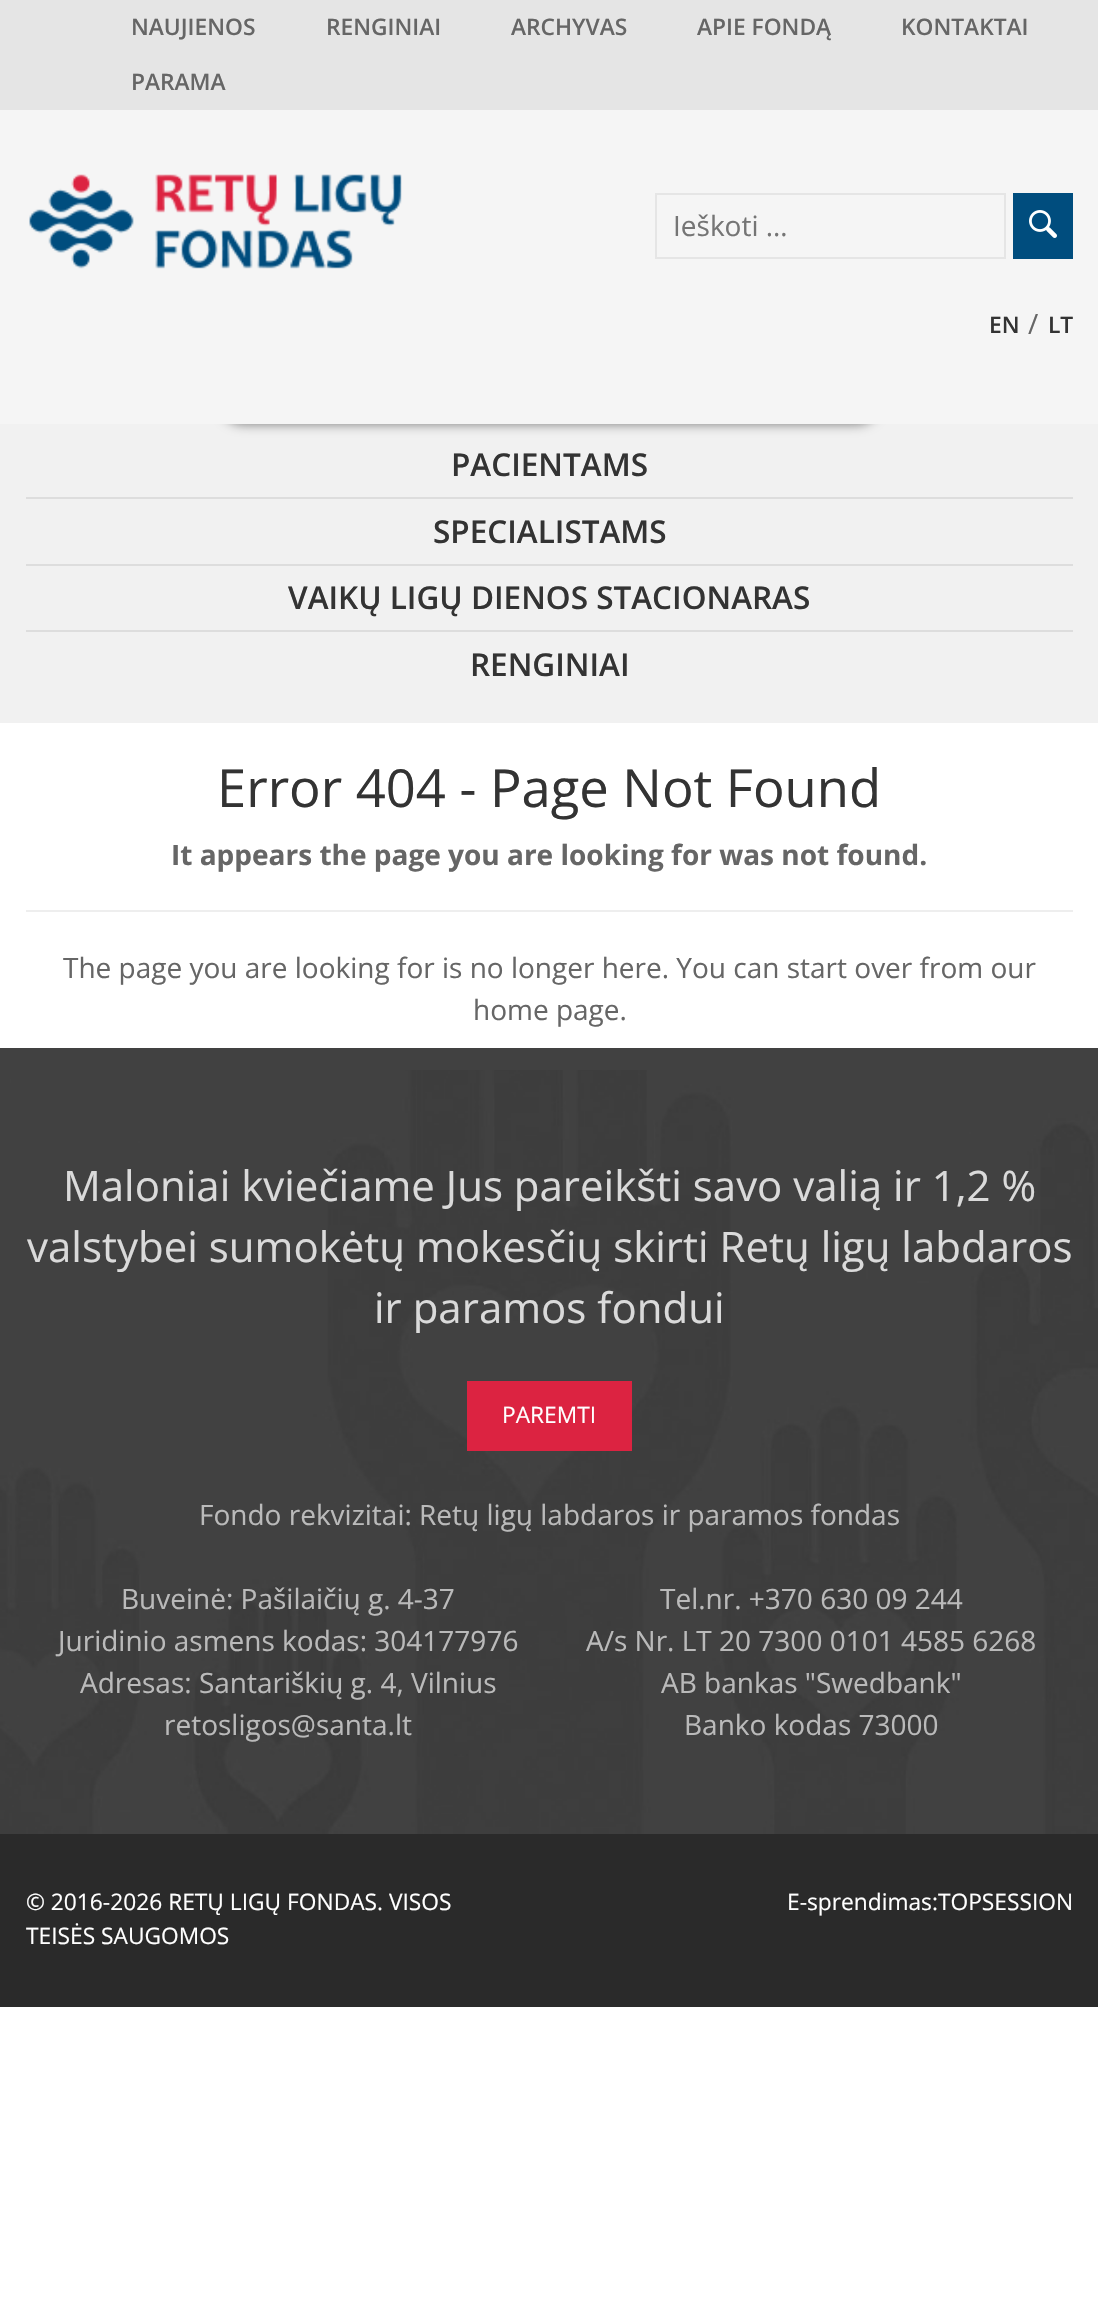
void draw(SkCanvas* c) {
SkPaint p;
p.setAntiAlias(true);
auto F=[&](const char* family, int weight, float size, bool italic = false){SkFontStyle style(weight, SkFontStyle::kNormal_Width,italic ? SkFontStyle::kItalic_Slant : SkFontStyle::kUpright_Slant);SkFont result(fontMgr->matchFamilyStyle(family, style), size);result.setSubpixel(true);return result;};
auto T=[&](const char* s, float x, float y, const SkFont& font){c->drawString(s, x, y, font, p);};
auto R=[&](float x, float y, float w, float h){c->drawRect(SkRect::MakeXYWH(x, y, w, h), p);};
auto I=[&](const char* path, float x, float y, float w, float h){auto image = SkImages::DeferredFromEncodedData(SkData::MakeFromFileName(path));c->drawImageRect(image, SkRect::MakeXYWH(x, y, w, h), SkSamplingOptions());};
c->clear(0xffffffff);
p.setColor(0xffe5e5e5);
R(0,0,1098,110);
auto f1 = F("Open Sans",600,22.75);
p.setColor(0xff666666);
T("NAUJIENOS",131,35,f1);
T("RENGINIAI",326,35,f1);
T("ARCHYVAS",511,35,f1);
T("APIE FONDĄ",697,35,f1);
T("KONTAKTAI",901,35,f1);
T("PARAMA",131,90,f1);
p.setColor(0xfff1f1f1);
R(0,424,1098,299);
p.setColor(0x80000000);
p.setMaskFilter(SkMaskFilter::MakeBlur(kNormal_SkBlurStyle, 6));
c->drawRoundRect(SkRect::MakeXYWH(221,380,658,44),22,22,p);
p.setMaskFilter(nullptr);
p.setColor(0xfff5f5f5);
R(0,110,1098,314);
I("1.png",29,174,373,95);
p.setStroke(true);
p.setStrokeWidth(2);
p.setColor(0xffe5e5e5);
c->drawRect(SkRect::MakeXYWH(656,194,349,64),p);
auto f2 = F("Open Sans",400,28);
p.setStroke(false);
p.setColor(0xff757575);
T("Ieškoti …",673,236,f2);
p.setColor(0xff004d7e);
R(1013,193,60,66);
I("2.png",1029,210,28,28);
p.setColor(0xff333333);
T("EN",989,333,f1);
p.setColor(0xff666666);
T("/",1028,334,f2);
p.setColor(0xff333333);
T("LT",1048,333,f1);
auto f3 = F("Open Sans",600,31.5);
T("PACIENTAMS",451,476,f3);
p.setColor(0xffdddddd);
R(26,497,1047,2);
p.setColor(0xff333333);
T("SPECIALISTAMS",433,543,f3);
p.setColor(0xffdddddd);
R(26,564,1047,2);
p.setColor(0xff333333);
T("VAIKŲ LIGŲ DIENOS STACIONARAS",288,609,f3);
p.setColor(0xffdddddd);
R(26,630,1047,2);
p.setColor(0xff333333);
T("RENGINIAI",470,676,f3);
auto f4 = F("Open Sans",400,52.5);
T("Error 404 - Page Not Found",217,807,f4);
auto f5 = F("Open Sans",700,28);
p.setColor(0xff666666);
T("It appears the page you are looking for was not found.",171,865,f5);
p.setColor(0xffeeeeee);
R(26,910,1047,2);
p.setColor(0xff666666);
T("The page you are looking for is no longer here. You can start over from our",63,978,f2);
T("home page.",473,1020,f2);
p.setColor(0xff414141);
R(0,1048,1098,22);
I("3.png",0,1070,1098,764);
auto f6 = F("Open Sans",400,42);
p.setColor(0xffdadada);
T("Maloniai kviečiame Jus pareikšti savo valią ir 1,2 %",63,1201,f6);
T("valstybei sumokėtų mokesčių skirti Retų ligų labdaros",27,1262,f6);
T("ir paramos fondui",374,1323,f6);
p.setColor(0xffdc2341);
R(467,1381,165,70);
auto f7 = F("Open Sans",400,22.75);
p.setColor(0xffffffff);
T("PAREMTI",502,1423,f7);
p.setColor(0xffbababa);
T("Fondo rekvizitai: Retų ligų labdaros ir paramos fondas",199,1525,f2);
T("Buveinė: Pašilaičių g. 4-37",121,1609,f2);
T("Juridinio asmens kodas: 304177976",58,1651,f2);
T("Adresas: Santariškių g. 4, Vilnius",80,1693,f2);
T("retosligos@santa.lt",164,1735,f2);
T("Tel.nr. +370 630 09 244",660,1609,f2);
T("A/s Nr. LT 20 7300 0101 4585 6268",586,1651,f2);
T("AB bankas \"Swedbank\"",661,1693,f2);
T("Banko kodas 73000",684,1735,f2);
p.setColor(0xff2a2a2a);
R(0,1834,1098,173);
p.setColor(0xffffffff);
T("© 2016-2026 RETŲ LIGŲ FONDAS. VISOS",26,1910,f7);
T("TEISĖS SAUGOMOS",26,1944,f7);
T("E-sprendimas:TOPSESSION",787,1910,f7);
}
